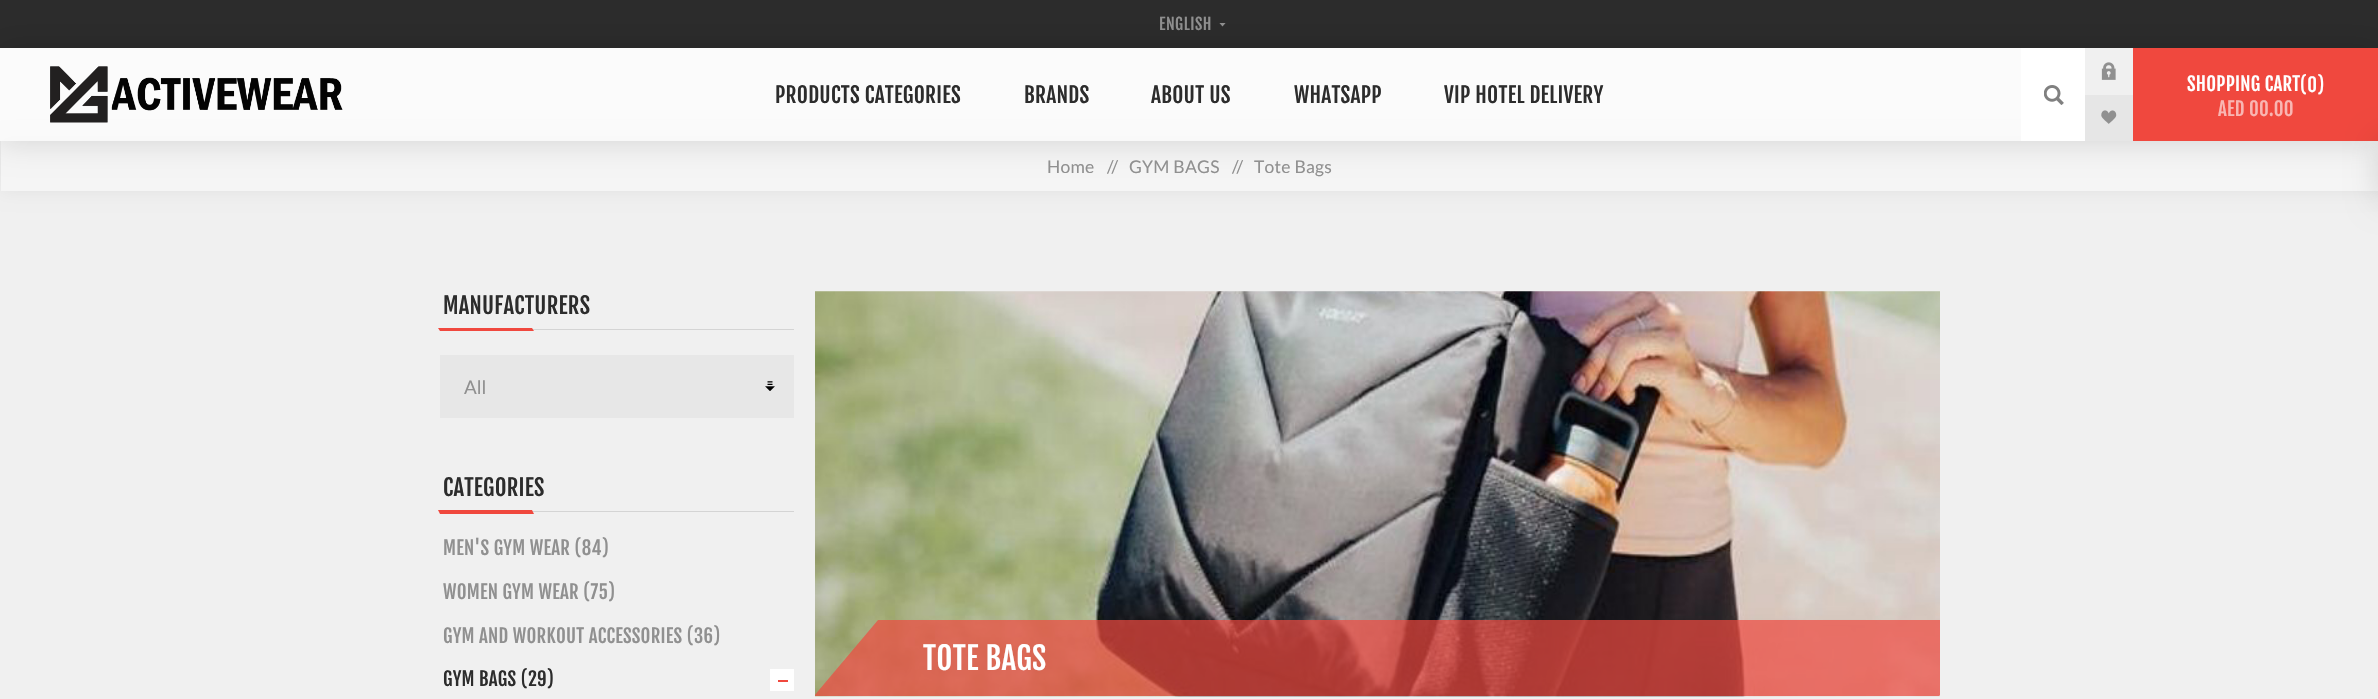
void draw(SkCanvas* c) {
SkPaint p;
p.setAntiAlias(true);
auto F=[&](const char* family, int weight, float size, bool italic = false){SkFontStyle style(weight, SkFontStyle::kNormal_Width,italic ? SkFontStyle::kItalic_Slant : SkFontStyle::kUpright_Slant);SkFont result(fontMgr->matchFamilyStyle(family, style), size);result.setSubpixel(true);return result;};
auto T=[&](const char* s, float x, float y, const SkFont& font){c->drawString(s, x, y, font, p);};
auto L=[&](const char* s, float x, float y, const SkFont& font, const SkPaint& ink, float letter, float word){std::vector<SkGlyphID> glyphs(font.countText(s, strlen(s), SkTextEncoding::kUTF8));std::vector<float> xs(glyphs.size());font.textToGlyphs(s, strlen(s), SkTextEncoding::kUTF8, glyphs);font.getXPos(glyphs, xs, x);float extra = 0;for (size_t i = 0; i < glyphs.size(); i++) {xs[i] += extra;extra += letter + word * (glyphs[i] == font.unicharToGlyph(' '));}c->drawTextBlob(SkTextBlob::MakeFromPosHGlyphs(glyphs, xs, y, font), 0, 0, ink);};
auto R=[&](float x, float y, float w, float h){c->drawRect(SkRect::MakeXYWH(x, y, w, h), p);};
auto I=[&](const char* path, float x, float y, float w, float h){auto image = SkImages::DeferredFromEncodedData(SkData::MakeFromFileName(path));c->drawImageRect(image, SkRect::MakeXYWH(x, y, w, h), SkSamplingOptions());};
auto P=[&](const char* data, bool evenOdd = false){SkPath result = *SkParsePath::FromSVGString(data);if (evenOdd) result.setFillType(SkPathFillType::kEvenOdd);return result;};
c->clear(0xfff0f0f0);
p.setColor(0xff2c2c2c);
R(0,0,2378,48);
c->save();
c->clipRect(SkRect::MakeXYWH(1219,23,7,4));
p.setColor(0xff909090);
c->drawPath(P("M1219 22.5h7l-3.5 4z",true),p);
c->restore();
auto f1 = F("Fjalla One",400,16);
L("ENGLISH",1159,30,f1,p,.5,0);
p.setColor(0x0f000000);
p.setMaskFilter(SkMaskFilter::MakeBlur(kNormal_SkBlurStyle, 9));
c->drawRect(SkRect::MakeXYWH(1,141,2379,50),p);
p.setMaskFilter(nullptr);
p.setColor(0xfff5f5f5);
R(1,141,2377,50);
c->save();
c->clipPath(P("M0 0h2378v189h-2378zm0 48h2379v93h-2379z",true),true);
p.setColor(0x26000000);
p.setMaskFilter(SkMaskFilter::MakeBlur(kNormal_SkBlurStyle, 15.5));
c->drawRect(SkRect::MakeXYWH(0,48,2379,93),p);
p.setMaskFilter(nullptr);
c->restore();
p.setColor(0xb3ffffff);
R(0,48,2021,93);
I("1.png",50,66,293,57);
auto f2 = F("Fjalla One",400,21.25);
p.setColor(0xff2c2c2c);
L("PRODUCTS CATEGORIES",775,103,f2,p,.25,0);
L("BRANDS",1024,103,f2,p,.25,0);
L("ABOUT US",1151,103,f2,p,.25,0);
L("WHATSAPP",1294,103,f2,p,.25,0);
L("VIP HOTEL DELIVERY",1444,103,f2,p,.25,0);
p.setColor(0xffffffff);
R(2021,48,64,93);
I("2.png",2044,85,20,20);
I("3.png",2101,62,15,18);
p.setColor(0xffe6e6e6);
R(2085,95,48,46);
I("4.png",2101,110,16,14);
p.setColor(0xfff0483e);
R(2133,48,245,93);
auto f3 = F("Fjalla One",400,18.75);
p.setColor(0xffffffff);
L("SHOPPING CART",2187,91,f3,p,.25,0);
L("(0)",2300,92,f3,p,.25,0);
p.setColor(0xfff9b6b2);
L("AED 00.00",2218,116,f3,p,.25,0);
p.setColor(0x26000000);
p.setMaskFilter(SkMaskFilter::MakeBlur(kNormal_SkBlurStyle, 15.5));
c->drawRect(SkRect::MakeXYWH(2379,141,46,59),p);
p.setMaskFilter(nullptr);
auto f4 = F("Lato",400,17.5);
p.setColor(0xff909090);
L("Home",1047,173,f4,p,.25,0);
L("//",1107,173,f4,p,-2,0);
L("GYM BAGS",1129,173,f4,p,.25,0);
L("//",1232,173,f4,p,-2,0);
L("Tote Bags",1254,173,f4,p,.25,0);
p.setColor(0xffd4d4d4);
R(532,329,262,1);
auto f5 = F("Fjalla One",400,22.5);
p.setColor(0xff2c2c2c);
L("MANUFACTURERS",443,314,f5,p,.25,0);
p.setColor(0xfff0483e);
c->drawPath(P("M438 328h94l2 3h-94z"),p);
p.setColor(0xffe7e7e7);
R(440,355,354,63);
I("5.png",765,381,10,10);
auto f6 = F("Lato",400,18.75);
p.setColor(0xff909090);
T("All",464,394,f6);
p.setColor(0xffd4d4d4);
R(532,511,262,1);
p.setColor(0xff2c2c2c);
L("CATEGORIES",443,496,f5,p,.25,0);
p.setColor(0xfff0483e);
c->drawPath(P("M438 510h94l2 4h-94z"),p);
p.setColor(0xff909090);
L("MEN'S GYM WEAR (84)",443,555,f3,p,.25,0);
L("WOMEN GYM WEAR (75)",443,599,f3,p,.25,0);
L("GYM AND WORKOUT ACCESSORIES (36)",443,643,f3,p,.25,0);
p.setColor(0xff2c2c2c);
L("GYM BAGS (29)",443,686,f3,p,.25,0);
p.setColor(0xffffffff);
R(770,669,24,22);
p.setColor(0xfff0483e);
R(778,680,10,2);
I("6.png",815,291,1125,406);
c->save();
c->clipRect(SkRect::MakeXYWH(815,620,1125,76));
p.setColor(0xb3f0483e);
c->drawPath(P("M878 620h1125l-64 76h-1125z"),p);
c->restore();
auto f7 = F("Fjalla One",400,31);
p.setColor(0xffffffff);
L("TOTE BAGS",923,670,f7,p,.25,0);
}
